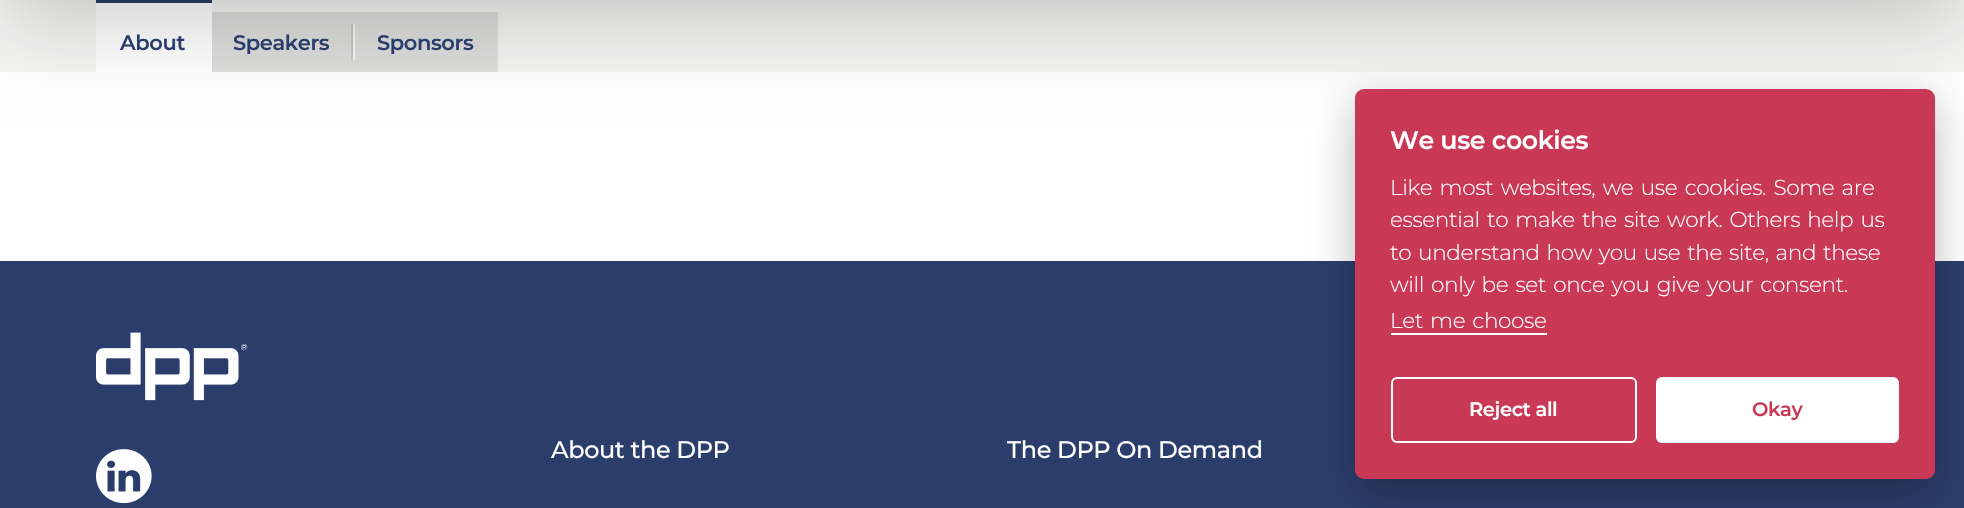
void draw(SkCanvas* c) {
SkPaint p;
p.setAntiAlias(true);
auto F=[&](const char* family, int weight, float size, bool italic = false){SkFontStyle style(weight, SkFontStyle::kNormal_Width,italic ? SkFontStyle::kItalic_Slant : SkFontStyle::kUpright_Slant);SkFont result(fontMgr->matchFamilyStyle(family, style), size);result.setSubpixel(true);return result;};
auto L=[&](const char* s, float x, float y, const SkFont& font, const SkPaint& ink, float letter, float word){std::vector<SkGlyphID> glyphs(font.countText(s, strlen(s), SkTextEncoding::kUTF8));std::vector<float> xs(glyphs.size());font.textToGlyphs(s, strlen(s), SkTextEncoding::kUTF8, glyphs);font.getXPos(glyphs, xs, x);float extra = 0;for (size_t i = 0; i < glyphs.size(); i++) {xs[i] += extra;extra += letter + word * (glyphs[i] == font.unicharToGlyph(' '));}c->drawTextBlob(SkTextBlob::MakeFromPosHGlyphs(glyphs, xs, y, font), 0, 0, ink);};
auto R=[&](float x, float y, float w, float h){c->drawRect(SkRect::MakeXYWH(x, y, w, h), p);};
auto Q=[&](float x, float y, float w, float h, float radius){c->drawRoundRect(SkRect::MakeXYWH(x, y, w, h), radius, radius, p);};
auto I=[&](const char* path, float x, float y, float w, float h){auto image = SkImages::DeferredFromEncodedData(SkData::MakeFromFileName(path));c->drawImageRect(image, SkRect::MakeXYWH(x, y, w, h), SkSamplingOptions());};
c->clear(0xffffffff);
p.setColor(0xfff5f5f4);
R(0,0,1964,72);
p.setColor(0xffffffff);
R(96,3,116,69);
p.setColor(0xff2a3d6b);
R(96,0,116,3);
p.setColor(0xffdddddc);
R(212,12,286,60);
p.setColor(0xffc7c7c6);
R(351,24,3,36);
p.setColor(0xccffffff);
R(353,24,2,36);
p.setColor(0x33000000);
p.setMaskFilter(SkMaskFilter::MakeBlur(kNormal_SkBlurStyle, 43.5));
c->drawRect(SkRect::MakeXYWH(0,-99,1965,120),p);
p.setMaskFilter(nullptr);
auto f1 = F("Montserrat",600,21);
p.setColor(0xff2a3d6b);
L("About",120,50,f1,p,-.4,0);
L("Speakers",233,50,f1,p,-.4,0);
L("Sponsors",377,50,f1,p,-.4,0);
R(0,261,1964,247);
I("1.png",96,332,152,69);
I("2.png",96,449,56,55);
auto f2 = F("Montserrat",500,24);
p.setColor(0xffffffff);
L("About the DPP",551,458,f2,p,-.4,0);
L("The DPP On Demand",1007,458,f2,p,-.4,0);
p.setColor(0x47020203);
p.setMaskFilter(SkMaskFilter::MakeBlur(kNormal_SkBlurStyle, 22.5));
c->drawRoundRect(SkRect::MakeXYWH(1355,104,580,390),9,9,p);
p.setMaskFilter(nullptr);
p.setColor(0xffc93956);
Q(1355,89,580,390,9);
auto f3 = F("Montserrat",600,25.25);
p.setColor(0xffffffff);
L("We use cookies",1390,149,f3,p,-.4,0);
auto f4 = F("Montserrat",300,21.6);
L("Like most websites, we use cookies. Some are",1390,195,f4,p,-.4,2.25);
L("essential to make the site work. Others help us",1390,227,f4,p,-.4,2);
L("to understand how you use the site, and these",1390,260,f4,p,-.4,1.75);
L("will only be set once you give your consent.",1390,292,f4,p,-.4,2);
L("Let me choose",1390,328,f4,p,-.4,2);
R(1391,333,156,2);
p.setStroke(true);
p.setStrokeWidth(2);
c->drawRoundRect(SkRect::MakeXYWH(1392,378,244,64),5,5,p);
auto f5 = F("Montserrat",600,19.5);
p.setStroke(false);
L("Reject all",1469,416,f5,p,-.4,0);
Q(1656,377,243,66,6);
p.setColor(0xffc93956);
L("Okay",1752,416,f5,p,-.4,0);
}
